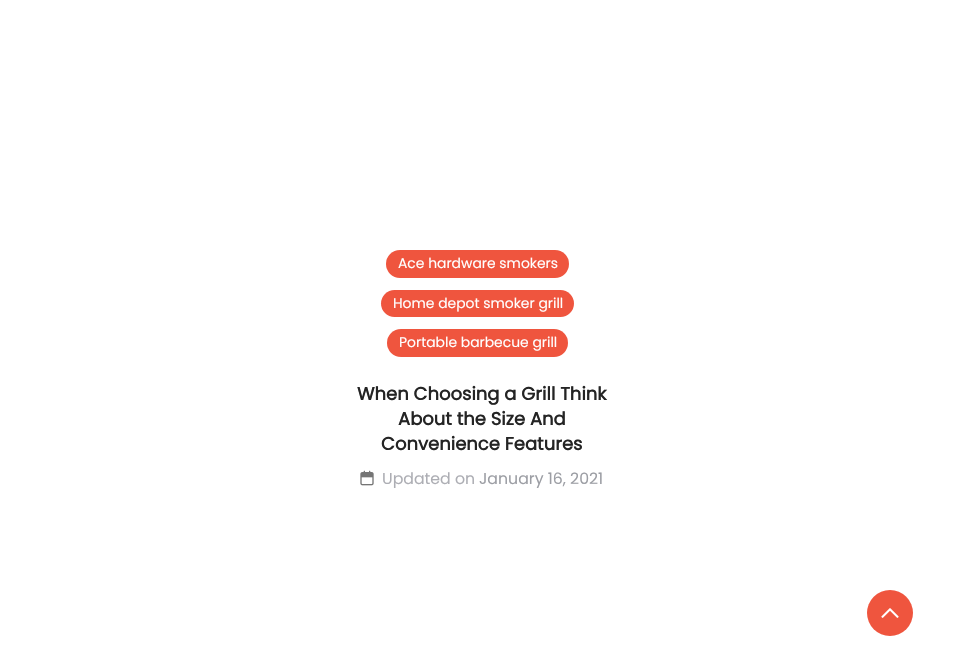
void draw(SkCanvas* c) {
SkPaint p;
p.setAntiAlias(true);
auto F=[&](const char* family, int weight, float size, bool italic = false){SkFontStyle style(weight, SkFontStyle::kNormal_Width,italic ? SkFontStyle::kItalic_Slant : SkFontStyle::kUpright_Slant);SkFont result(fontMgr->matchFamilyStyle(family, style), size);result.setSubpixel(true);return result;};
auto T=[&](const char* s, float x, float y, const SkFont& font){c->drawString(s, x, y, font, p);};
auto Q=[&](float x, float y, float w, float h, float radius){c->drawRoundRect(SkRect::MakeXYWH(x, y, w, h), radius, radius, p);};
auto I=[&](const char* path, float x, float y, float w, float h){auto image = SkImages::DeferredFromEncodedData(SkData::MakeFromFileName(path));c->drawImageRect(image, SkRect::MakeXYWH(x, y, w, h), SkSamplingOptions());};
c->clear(0xffffffff);
p.setColor(0xffef553e);
Q(386,250,183,28,14);
auto f1 = F("Poppins",400,13.9);
p.setColor(0xffffffff);
T("Ace hardware smokers",398,268,f1);
p.setColor(0xffef553e);
Q(381,290,193,27,13.5);
p.setColor(0xffffffff);
T("Home depot smoker grill",393,308,f1);
p.setColor(0xffef553e);
Q(387,329,181,28,14);
p.setColor(0xffffffff);
T("Portable barbecue grill",399,347,f1);
auto f2 = F("Poppins",700,18);
p.setColor(0xff242424);
T("When Choosing a Grill Think",357,400,f2);
T("About the Size And",398,425,f2);
T("Convenience Features",381,450,f2);
I("1.png",360,470,14,16);
auto f3 = F("Poppins",400,15.75);
p.setColor(0xffadaeb4);
T("Updated on",382,484,f3);
p.setColor(0xff9c9ea4);
T("January 16, 2021",479,484,f3);
p.setColor(0xffef553e);
c->drawCircle(890,613,23,p);
I("2.png",881,608,18,10);
}
